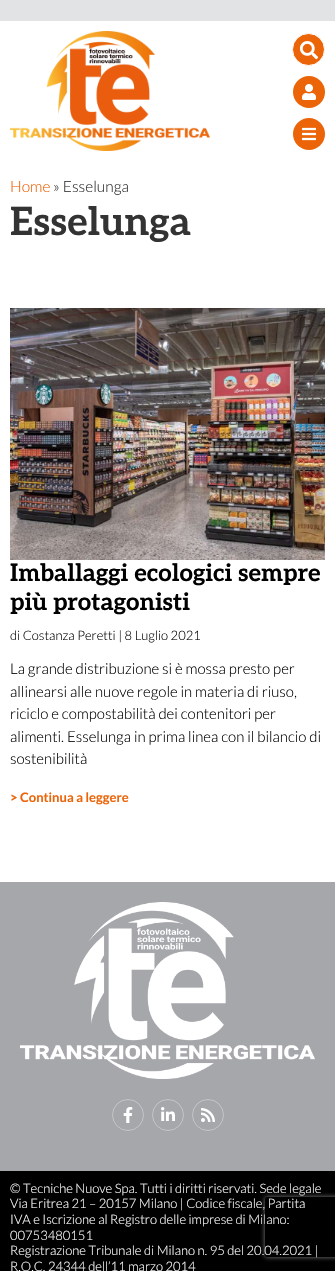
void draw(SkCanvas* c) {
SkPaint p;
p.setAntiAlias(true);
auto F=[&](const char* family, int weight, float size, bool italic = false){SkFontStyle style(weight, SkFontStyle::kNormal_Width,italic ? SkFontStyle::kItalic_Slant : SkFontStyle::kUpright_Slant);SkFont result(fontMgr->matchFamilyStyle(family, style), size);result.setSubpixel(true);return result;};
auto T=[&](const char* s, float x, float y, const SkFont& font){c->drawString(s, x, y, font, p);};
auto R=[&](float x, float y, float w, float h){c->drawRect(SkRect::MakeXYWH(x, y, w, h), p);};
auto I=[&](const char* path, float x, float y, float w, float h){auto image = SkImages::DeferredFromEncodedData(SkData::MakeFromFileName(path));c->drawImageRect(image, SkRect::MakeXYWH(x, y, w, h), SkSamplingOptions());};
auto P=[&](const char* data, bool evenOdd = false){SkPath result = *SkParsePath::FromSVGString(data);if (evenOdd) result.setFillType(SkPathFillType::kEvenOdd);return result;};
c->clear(0xffffffff);
p.setColor(0xffe2e3e4);
R(0,0,335,21);
I("1.png",10,31,200,120);
p.setColor(0xffec6408);
c->drawCircle(308.5,49.5,16,p);
p.setStroke(true);
p.setStrokeWidth(1);
p.setColor(0xffffffff);
c->drawCircle(308.5,49.5,16,p);
I("2.png",299,41,19,19);
p.setStroke(false);
p.setColor(0xffec6408);
c->drawCircle(309,92,16,p);
I("3.png",302,84,14,16);
c->drawCircle(309,134,16,p);
I("4.png",302,127,14,14);
auto f1 = F("Lato",300,15.5);
T("Home",10,192,f1);
p.setColor(0xff333333);
T("» Esselunga",53,192,f1);
auto f2 = F("Aleo",700,39);
T("Esselunga",10,235,f2);
I("5.png",10,308,315,252);
auto f3 = F("Aleo",700,24);
p.setColor(0xff000001);
T("Imballaggi ecologici sempre",10,581,f3);
T("più protagonisti",10,610,f3);
auto f4 = F("Lato",300,13);
T("di Costanza Peretti | 8 Luglio 2021",10,640,f4);
auto f5 = F("Lato",300,15);
T("La grande distribuzione si è mossa presto per",10,674,f5);
T("allinearsi alle nuove regole in materia di riuso,",10,697,f5);
T("riciclo e compostabilità dei contenitori per",10,719,f5);
T("alimenti. Esselunga in prima linea con il bilancio di",10,742,f5);
T("sostenibilità",10,764,f5);
auto f6 = F("Lato",700,13);
p.setColor(0xffec6408);
T("> Continua a leggere",10,802,f6);
p.setColor(0xffa5a7ab);
R(0,882,335,289);
I("6.png",20,902,295,177);
p.setStroke(true);
p.setColor(0xffc4c5c8);
c->drawCircle(128,1115,15.5,p);
I("7.png",123,1107,10,16);
c->drawCircle(168,1115,15.5,p);
I("8.png",161,1107,14,14);
c->drawCircle(208,1115,15.5,p);
I("9.png",201,1108,14,14);
p.setStroke(false);
p.setColor(0xff000001);
R(0,1171,335,100);
p.setColor(0xffffffff);
T("© Tecniche Nuove Spa. Tutti i diritti riservati. Sede legale",10,1193,f4);
T("Via Eritrea 21 – 20157 Milano | Codice fiscale, Partita",10,1208,f4);
T("IVA e Iscrizione al Registro delle imprese di Milano:",10,1224,f4);
T("00753480151",10,1240,f4);
T("Registrazione Tribunale di Milano n. 95 del 20.04.2021 |",10,1255,f4);
T("R.O.C. 24344 dell’11 marzo 2014",10,1271,f4);
c->save();
c->clipPath(P("M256 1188h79v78h-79zm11 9h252c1 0 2 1 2 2v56c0 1-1 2-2 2h-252c-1 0-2-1-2-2v-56c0-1 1-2 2-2z",true),true);
p.setColor(0xff808080);
p.setMaskFilter(SkMaskFilter::MakeBlur(kNormal_SkBlurStyle, 2.5));
c->drawRoundRect(SkRect::MakeXYWH(265,1197,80,60),2,2,p);
p.setMaskFilter(nullptr);
c->restore();
}
